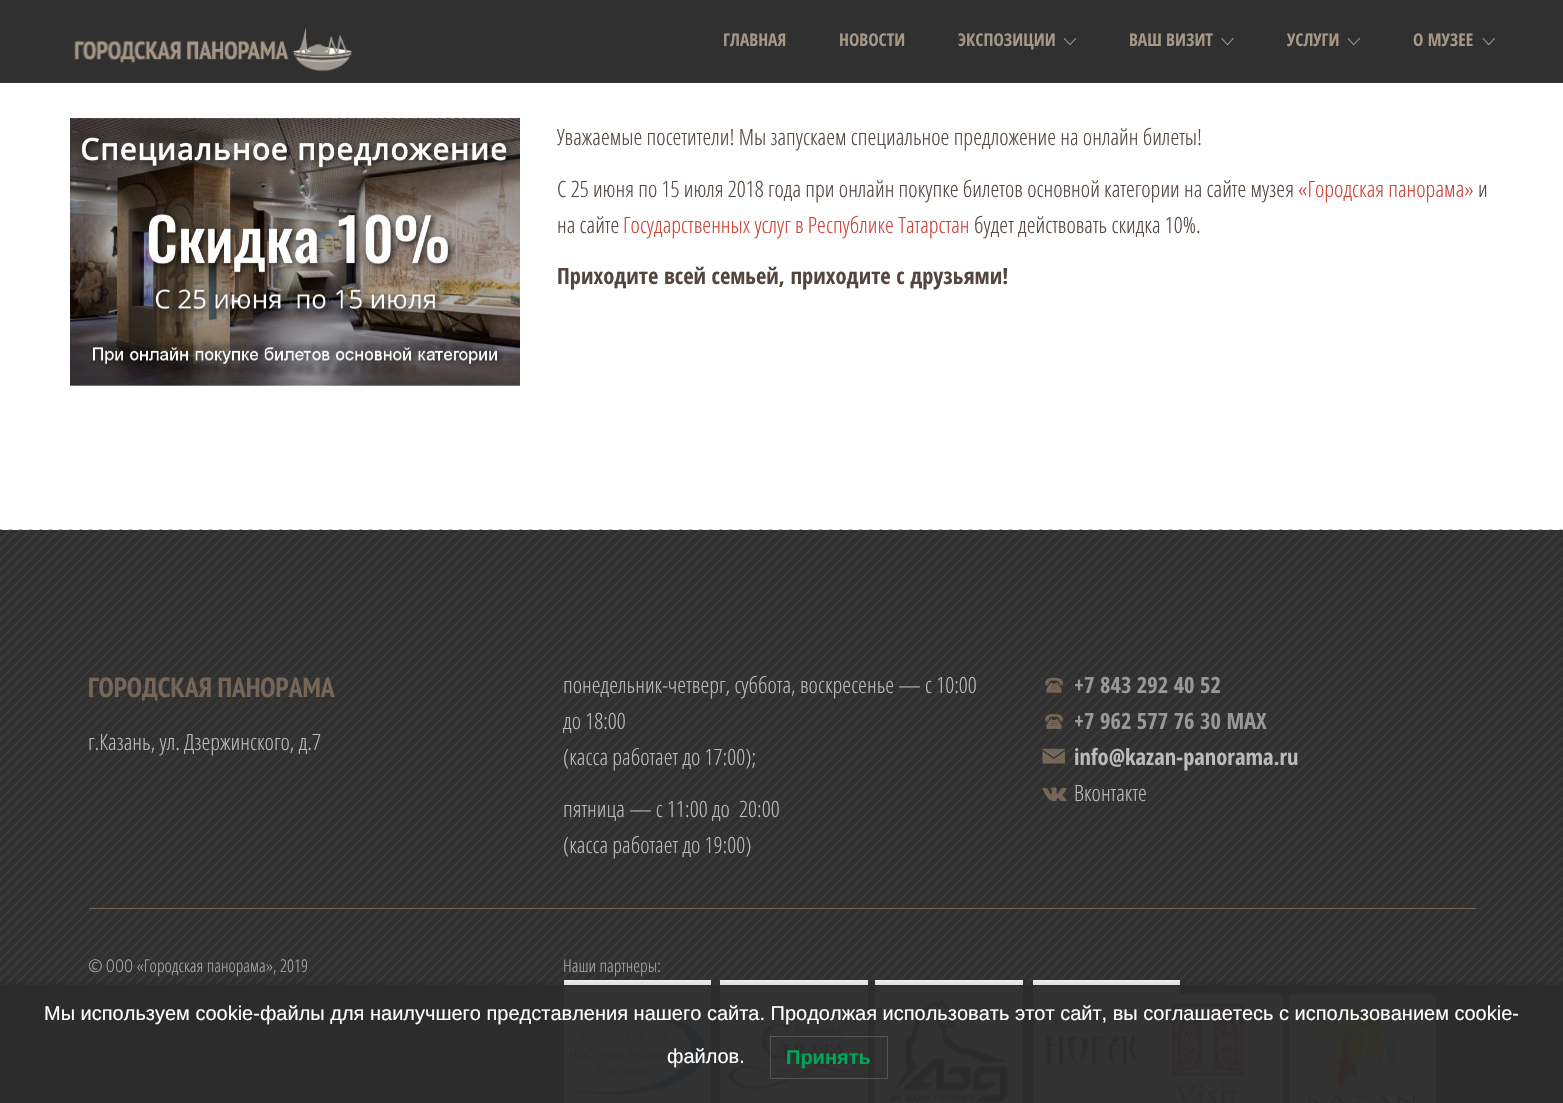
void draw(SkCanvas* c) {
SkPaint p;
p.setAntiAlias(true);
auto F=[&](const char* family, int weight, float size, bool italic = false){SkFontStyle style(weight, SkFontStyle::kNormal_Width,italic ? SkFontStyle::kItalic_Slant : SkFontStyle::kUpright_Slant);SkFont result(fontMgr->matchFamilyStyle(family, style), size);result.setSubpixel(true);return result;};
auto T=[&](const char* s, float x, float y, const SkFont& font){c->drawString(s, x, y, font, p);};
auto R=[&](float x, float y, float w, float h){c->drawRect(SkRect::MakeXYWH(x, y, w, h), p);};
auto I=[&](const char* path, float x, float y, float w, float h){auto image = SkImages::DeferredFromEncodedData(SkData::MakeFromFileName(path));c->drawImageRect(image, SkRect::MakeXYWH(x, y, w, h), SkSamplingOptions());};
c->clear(0xffffffff);
p.setColor(0xff303030);
R(0,0,1563,83);
I("1.png",74,28,279,44);
auto f1 = F("Open Sans Condensed",700,17.5);
p.setColor(0xffa59886);
T("ГЛАВНАЯ",723,46,f1);
T("НОВОСТИ",839,46,f1);
T("ЭКСПОЗИЦИИ",958,46,f1);
I("2.png",1063,38,14,8);
T("ВАШ ВИЗИТ",1129,46,f1);
I("3.png",1221,38,13,8);
T("УСЛУГИ",1287,46,f1);
I("4.png",1347,38,13,8);
T("О МУЗЕЕ",1413,46,f1);
I("4.png",1482,38,13,8);
I("5.png",70,118,450,268);
auto f2 = F("Open Sans Condensed",300,22.5);
p.setColor(0xff54453e);
T("Уважаемые посетители! Мы запускаем специальное предложение на онлайн билеты!",557,145,f2);
T("С 25 июня по 15 июля 2018 года при онлайн покупке билетов основной категории на сайте музея",557,197,f2);
p.setColor(0xffcc4237);
T("«Городская панорама»",1298,197,f2);
p.setColor(0xff54453e);
T("и",1478,197,f2);
T("на сайте",557,233,f2);
p.setColor(0xffcc4237);
T("Государственных услуг в Республике Татарстан",623,233,f2);
p.setColor(0xff54453e);
T("будет действовать скидка 10%.",974,233,f2);
auto f3 = F("Open Sans Condensed",700,22.5);
T("Приходите всей семьей, приходите с друзьями!",557,284,f3);
p.setColor(0xff303030);
R(0,530,1563,573);
I("6.png",0,529,1563,574);
auto f4 = F("PT Sans Narrow",700,27.5);
p.setColor(0xff746757);
T("ГОРОДСКАЯ ПАНОРАМА",88,697,f4);
p.setColor(0xffbbbbbb);
T("г.Казань, ул. Дзержинского, д.7",88,750,f2);
T("понедельник-четверг, суббота, воскресенье — с 10:00",563,693,f2);
T("до 18:00",563,729,f2);
T("(касса работает до 17:00);",563,765,f2);
T("пятница — с 11:00 до",563,817,f2);
T("20:00",739,817,f2);
T("(касса работает до 19:00)",563,853,f2);
I("7.png",1045,677,19,16);
p.setColor(0xff999999);
T("+7 843 292 40 52",1074,693,f3);
I("8.png",1045,714,19,15);
T("+7 962 577 76 30 MAX",1074,729,f3);
I("9.png",1042,748,23,16);
p.setColor(0xffbbbbbb);
T("info@kazan-panorama.ru",1074,765,f3);
I("10.png",1042,787,25,15);
T("Вконтакте",1074,801,f2);
p.setColor(0xff746757);
R(89,908,1387,1);
auto f5 = F("Open Sans Condensed",300,17.5);
p.setColor(0xffaaaaaa);
T("© ООО «Городская панорама», 2019",88,972,f5);
T("Наши партнеры:",563,972,f5);
p.setColor(0xffeeeeee);
R(564,980,147,123);
I("11.png",570,1011,135,84);
R(720,980,148,123);
I("12.png",726,986,136,117);
R(875,980,148,123);
I("13.png",881,986,136,117);
R(1033,980,147,123);
I("14.png",1039,986,135,117);
R(1135,994,148,109);
I("15.png",1141,999,136,104);
R(1289,995,147,108);
I("16.png",1295,1001,135,102);
c->save();
c->clipRect(SkRect::MakeXYWH(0,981,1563,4));
p.setColor(0x1a000000);
p.setMaskFilter(SkMaskFilter::MakeBlur(kNormal_SkBlurStyle, 5));
c->drawRect(SkRect::MakeXYWH(0,985,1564,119),p);
p.setMaskFilter(nullptr);
c->restore();
p.setColor(0xf72b2b2b);
R(0,986,1563,117);
p.setColor(0xff2b2b2b);
R(0,985,1563,1);
auto f6 = F("Liberation Sans",400,20);
p.setColor(0xffffffff);
T("Мы используем cookie-файлы для наилучшего представления нашего сайта. Продолжая использовать этот сайт, вы соглашаетесь с использованием cookie-",44,1020,f6);
T("файлов.",667,1063,f6);
p.setStroke(true);
p.setStrokeWidth(1);
p.setColor(0xff555555);
c->drawRect(SkRect::MakeXYWH(770.5,1036.5,117,42),p);
auto f7 = F("Liberation Sans",700,20);
p.setStroke(false);
p.setColor(0xff00a65a);
T("Принять",786,1064,f7);
}
